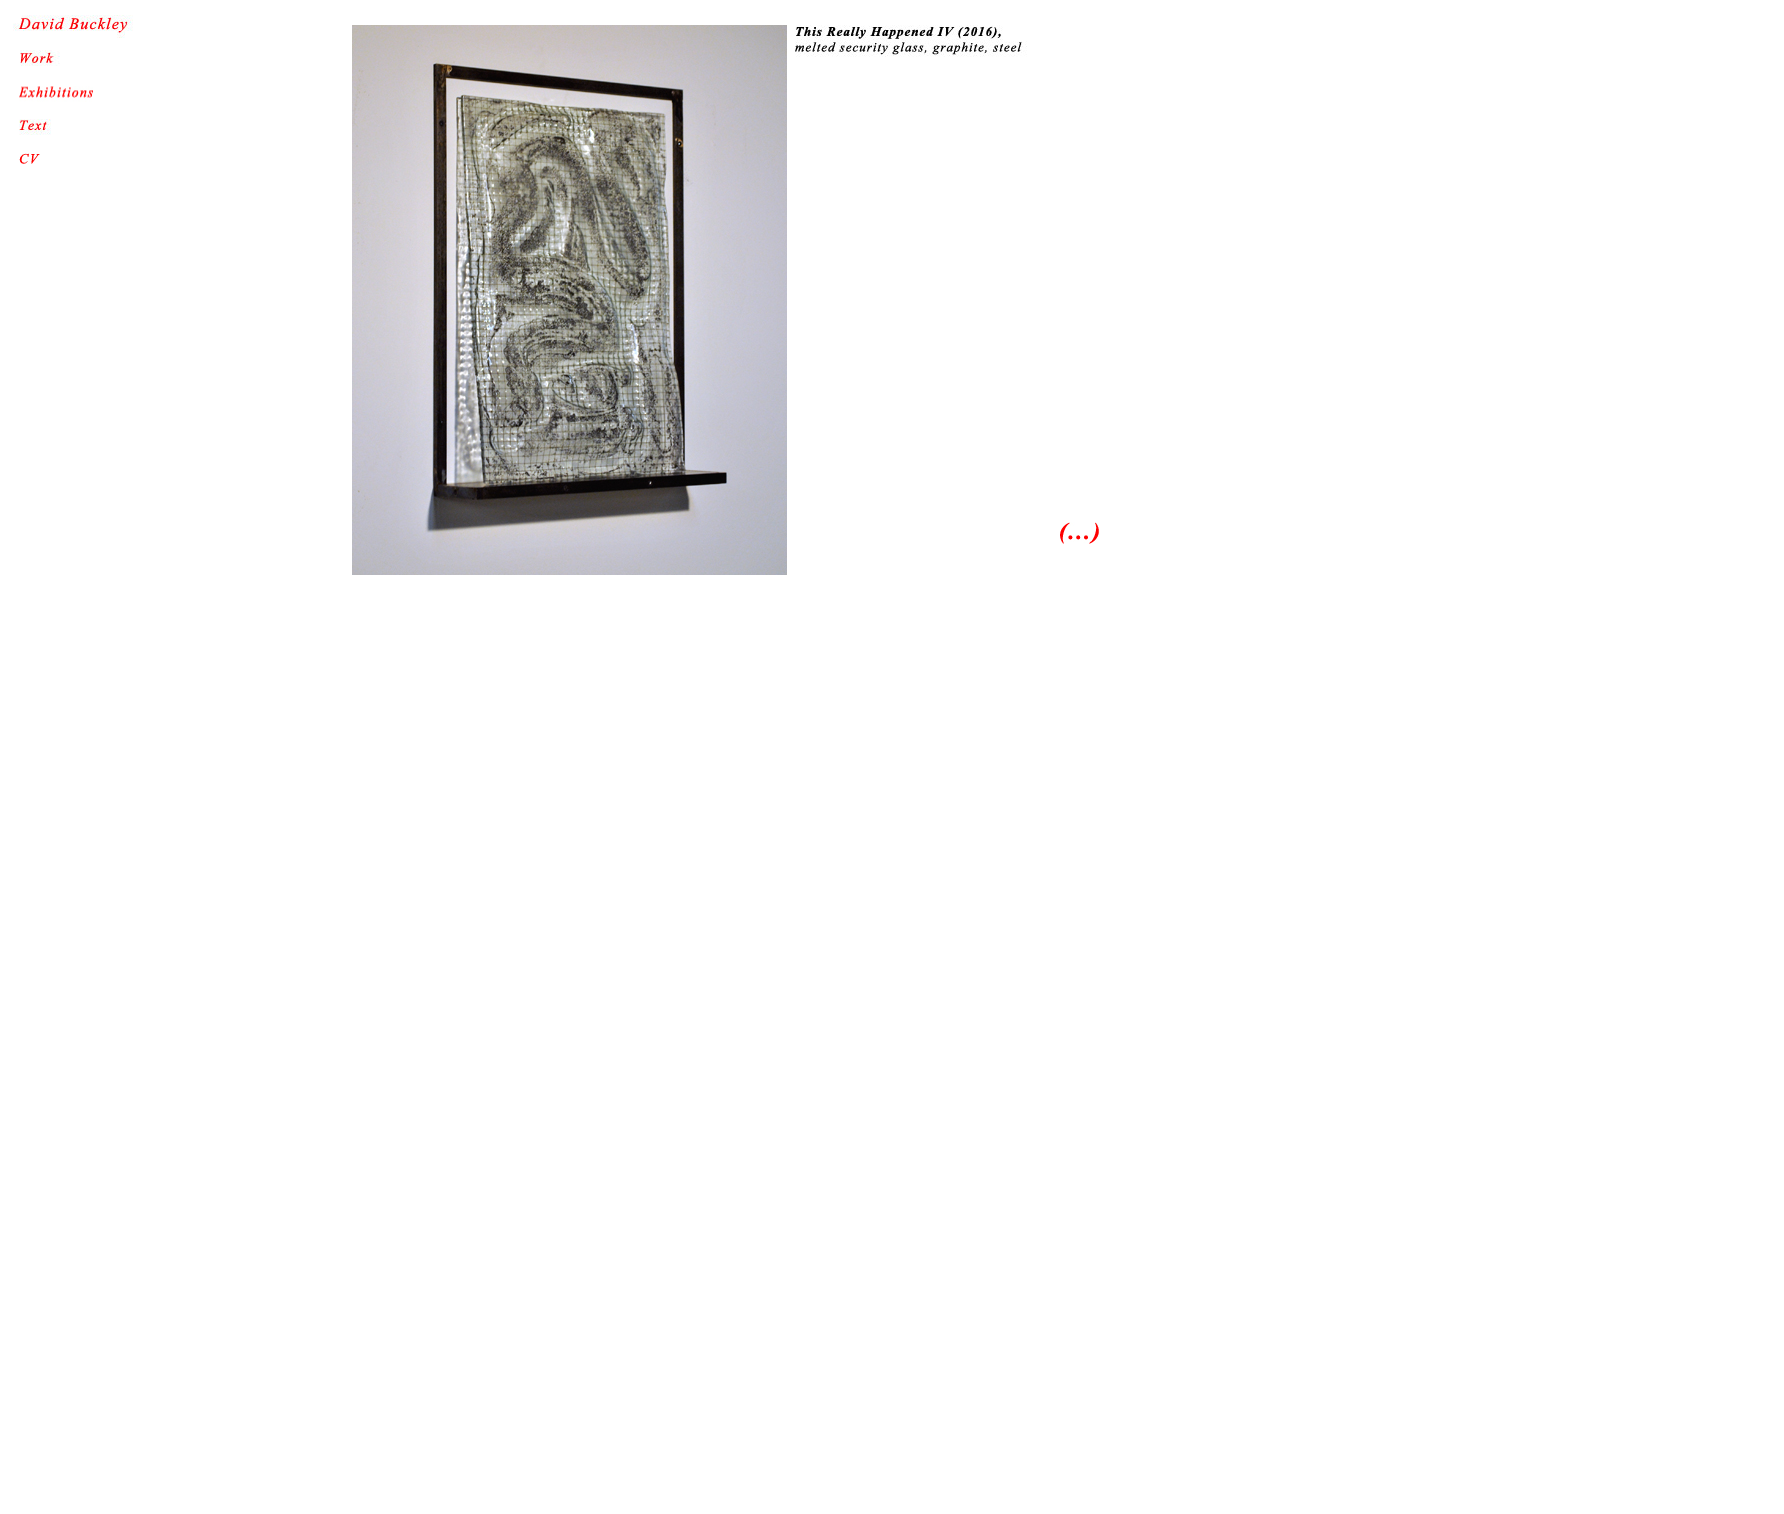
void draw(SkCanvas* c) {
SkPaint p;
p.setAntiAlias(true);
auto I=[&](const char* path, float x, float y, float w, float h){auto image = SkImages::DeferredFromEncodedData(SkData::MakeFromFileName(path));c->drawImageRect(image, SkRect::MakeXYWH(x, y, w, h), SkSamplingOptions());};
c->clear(0xffffffff);
I("1.png",13,15,120,23);
I("2.png",352,25,435,550);
I("3.png",795,25,232,32);
I("4.png",20,50,40,16);
I("5.png",19,86,74,16);
I("6.png",19,119,32,16);
I("7.png",19,153,21,11);
I("8.png",1060,522,39,22);
}
